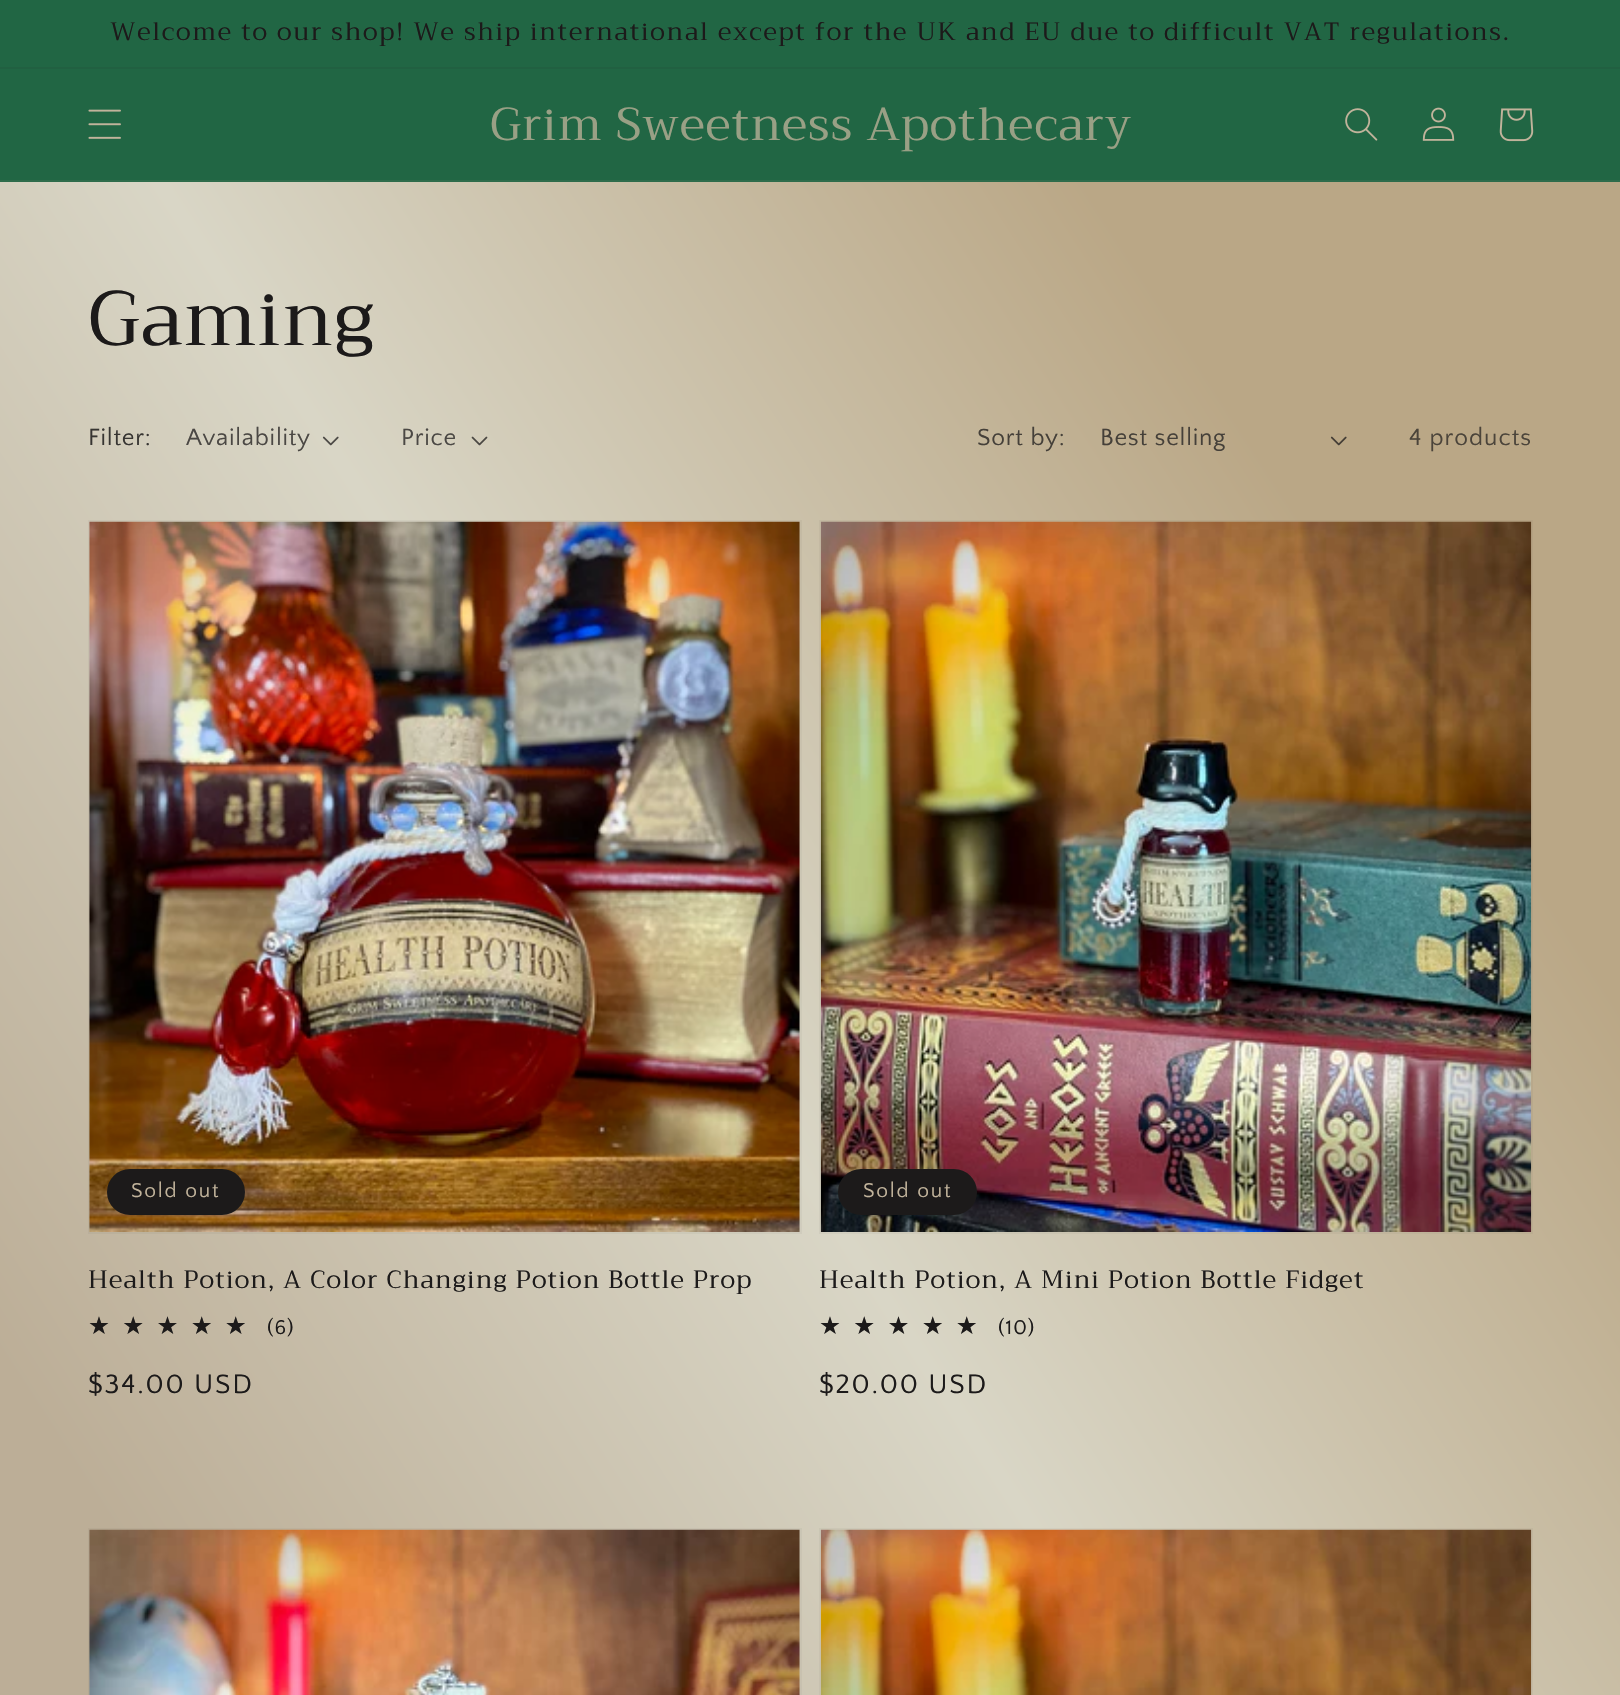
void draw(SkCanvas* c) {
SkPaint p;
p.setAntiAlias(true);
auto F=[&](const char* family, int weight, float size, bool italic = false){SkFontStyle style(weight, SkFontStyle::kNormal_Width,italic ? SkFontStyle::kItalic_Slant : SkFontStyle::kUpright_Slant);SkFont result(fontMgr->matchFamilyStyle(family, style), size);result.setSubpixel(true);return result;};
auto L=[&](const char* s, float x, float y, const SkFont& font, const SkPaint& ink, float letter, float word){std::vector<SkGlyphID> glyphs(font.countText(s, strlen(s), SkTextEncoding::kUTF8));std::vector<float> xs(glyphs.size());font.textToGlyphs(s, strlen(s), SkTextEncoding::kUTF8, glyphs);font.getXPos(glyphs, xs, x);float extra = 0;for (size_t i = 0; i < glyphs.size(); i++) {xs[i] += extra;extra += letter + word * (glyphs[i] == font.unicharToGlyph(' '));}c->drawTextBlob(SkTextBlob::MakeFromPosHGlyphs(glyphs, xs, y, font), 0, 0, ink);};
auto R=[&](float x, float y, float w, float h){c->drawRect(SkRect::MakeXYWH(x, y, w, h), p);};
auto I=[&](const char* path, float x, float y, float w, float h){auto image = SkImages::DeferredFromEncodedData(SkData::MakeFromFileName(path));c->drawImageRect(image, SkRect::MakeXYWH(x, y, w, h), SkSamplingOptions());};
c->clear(0xffffffff);
{
const SkColor colors[] = {0xffbcae97,0xffd9d6c6,0xffbaa786};
const float stops[] = {.08,.42,.76};
const SkPoint ends[] = {{-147,1469}, {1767,226}};
p.setShader(SkGradientShader::MakeLinear(ends, colors, stops, 3, SkTileMode::kClamp));
p.setAlpha(255);
}
R(0,182,1620,1513);
p.setShader(nullptr);
p.setColor(0xff216644);
R(0,0,1620,67);
p.setColor(0xff216041);
R(0,67,1620,2);
auto f1 = F("Trirong",400,25.03);
p.setColor(0xff1c1a1a);
L("Welcome to our shop! We ship international except for the UK and EU due to difficult VAT regulations.",110,40,f1,p,1.75,0);
p.setColor(0xff216644);
R(0,69,1620,111);
p.setColor(0xff2e6c4b);
R(0,180,1620,2);
I("1.png",88,109,33,30);
auto f2 = F("Trirong",400,46.25);
p.setColor(0xff99a085);
L("Grim Sweetness Apothecary",490,140,f2,p,1.15,0);
I("2.png",1345,108,33,33);
I("3.png",1422,107,33,34);
I("4.png",1499,108,35,34);
auto f3 = F("Trirong",400,77);
p.setColor(0xff1c1a1a);
L("Gaming",88,345,f3,p,1.15,0);
auto f4 = F("Quattrocento Sans",400,24.5);
p.setColor(0xff373532);
L("Filter:",88,445,f4,p,.75,0);
p.setColor(0xff4b4844);
L("Availability",186,445,f4,p,.75,0);
I("5.png",322,436,17,10);
L("Price",401,445,f4,p,.75,0);
I("6.png",471,436,17,10);
p.setColor(0xff454039);
L("Sort by:",977,445,f4,p,.75,0);
L("Best selling",1100,445,f4,p,.75,0);
I("7.png",1330,436,17,10);
p.setColor(0xff4b443a);
L("4 products",1409,445,f4,p,1,0);
p.setStroke(true);
p.setStrokeWidth(2);
p.setColor(0x0a1c1a1a);
c->drawRect(SkRect::MakeXYWH(89,521,712,712),p);
I("8.png",89,521,711,711);
p.setStroke(false);
p.setColor(0xff1c1a1a);
c->drawRoundRect(SkRect::MakeXYWH(108,1170,136,44),22,22,p);
p.setStroke(true);
c->drawRoundRect(SkRect::MakeXYWH(108,1170,136,44),22,22,p);
auto f5 = F("Quattrocento Sans",400,21);
p.setStroke(false);
p.setColor(0xffc1b39b);
L("Sold out",131,1197,f5,p,1.75,0);
p.setColor(0xff1c1a1a);
L("Health Potion, A Color Changing Potion Bottle Prop",88,1288,f1,p,1.15,0);
auto f6 = F("DejaVu Sans",400,24.5);
{
const SkColor colors[] = {0xff1c1a1a,0xffa99f8c};
const float stops[] = {1,1};
const SkPoint ends[] = {{88,1326}, {259,1326}};
p.setShader(SkGradientShader::MakeLinear(ends, colors, stops, 2, SkTileMode::kClamp));
p.setAlpha(255);
}
L("★★★★★",88,1334,f6,p,12.25,0);
p.setShader(nullptr);
p.setColor(0xff1c1a1a);
L("(6)",267,1334,f5,p,1,0);
auto f7 = F("Quattrocento Sans",400,28);
L("$34.00 USD",88,1393,f7,p,1.75,0);
p.setStroke(true);
p.setColor(0x0a1c1a1a);
c->drawRect(SkRect::MakeXYWH(820,521,712,712),p);
I("9.png",820,521,712,711);
p.setStroke(false);
p.setColor(0xff1c1a1a);
c->drawRoundRect(SkRect::MakeXYWH(839,1170,137,44),22,22,p);
p.setStroke(true);
c->drawRoundRect(SkRect::MakeXYWH(839,1170,137,44),22,22,p);
p.setStroke(false);
p.setColor(0xffc1b39b);
L("Sold out",863,1197,f5,p,1.75,0);
p.setColor(0xff1c1a1a);
L("Health Potion, A Mini Potion Bottle Fidget",819,1288,f1,p,1.15,0);
{
const SkColor colors[] = {0xff1c1a1a,0xffbcb8aa};
const float stops[] = {1,1};
const SkPoint ends[] = {{819,1326}, {990,1326}};
p.setShader(SkGradientShader::MakeLinear(ends, colors, stops, 2, SkTileMode::kClamp));
p.setAlpha(255);
}
L("★★★★★",819,1334,f6,p,12.25,0);
p.setShader(nullptr);
p.setColor(0xff1c1a1a);
L("(10)",998,1334,f5,p,1,0);
L("$20.00 USD",819,1393,f7,p,1.75,0);
p.setStroke(true);
p.setColor(0x0a1c1a1a);
c->drawRect(SkRect::MakeXYWH(89,1529,712,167),p);
I("10.png",89,1529,711,166);
c->drawRect(SkRect::MakeXYWH(820,1529,712,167),p);
I("11.png",820,1529,712,166);
}
